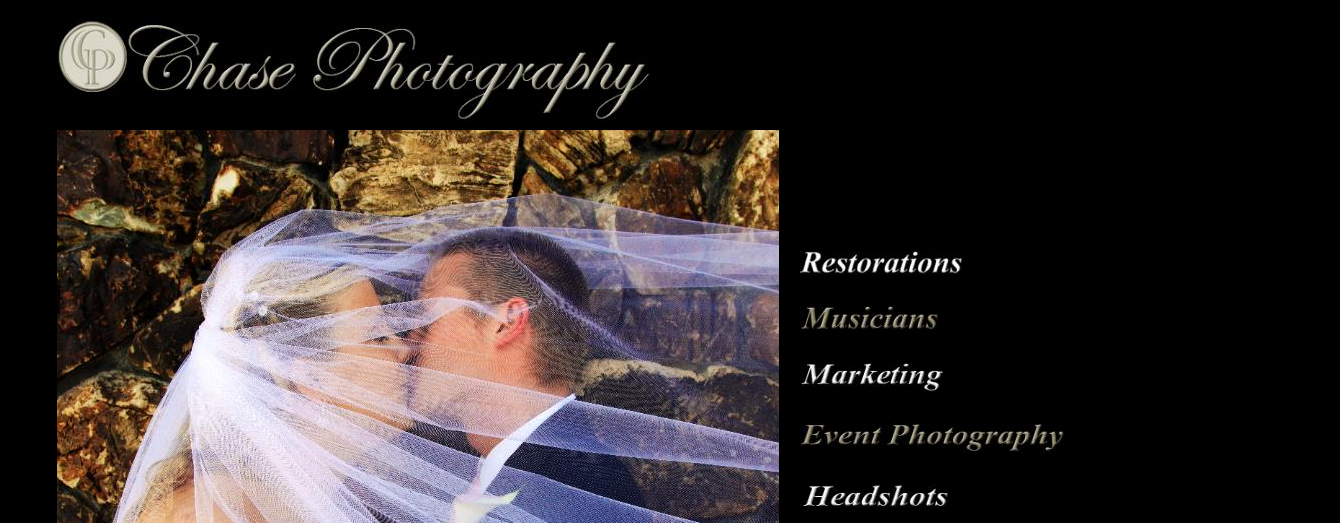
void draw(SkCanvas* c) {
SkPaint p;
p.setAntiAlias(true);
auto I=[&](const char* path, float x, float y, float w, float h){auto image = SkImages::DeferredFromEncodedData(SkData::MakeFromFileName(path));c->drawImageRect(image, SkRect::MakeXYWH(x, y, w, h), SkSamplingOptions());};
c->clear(0xff000000);
I("1.png",56,17,599,104);
I("2.png",57,130,722,393);
I("3.png",800,251,162,24);
I("4.png",800,306,139,26);
I("5.png",800,363,144,29);
I("6.png",800,423,264,30);
I("7.png",800,484,149,24);
}
